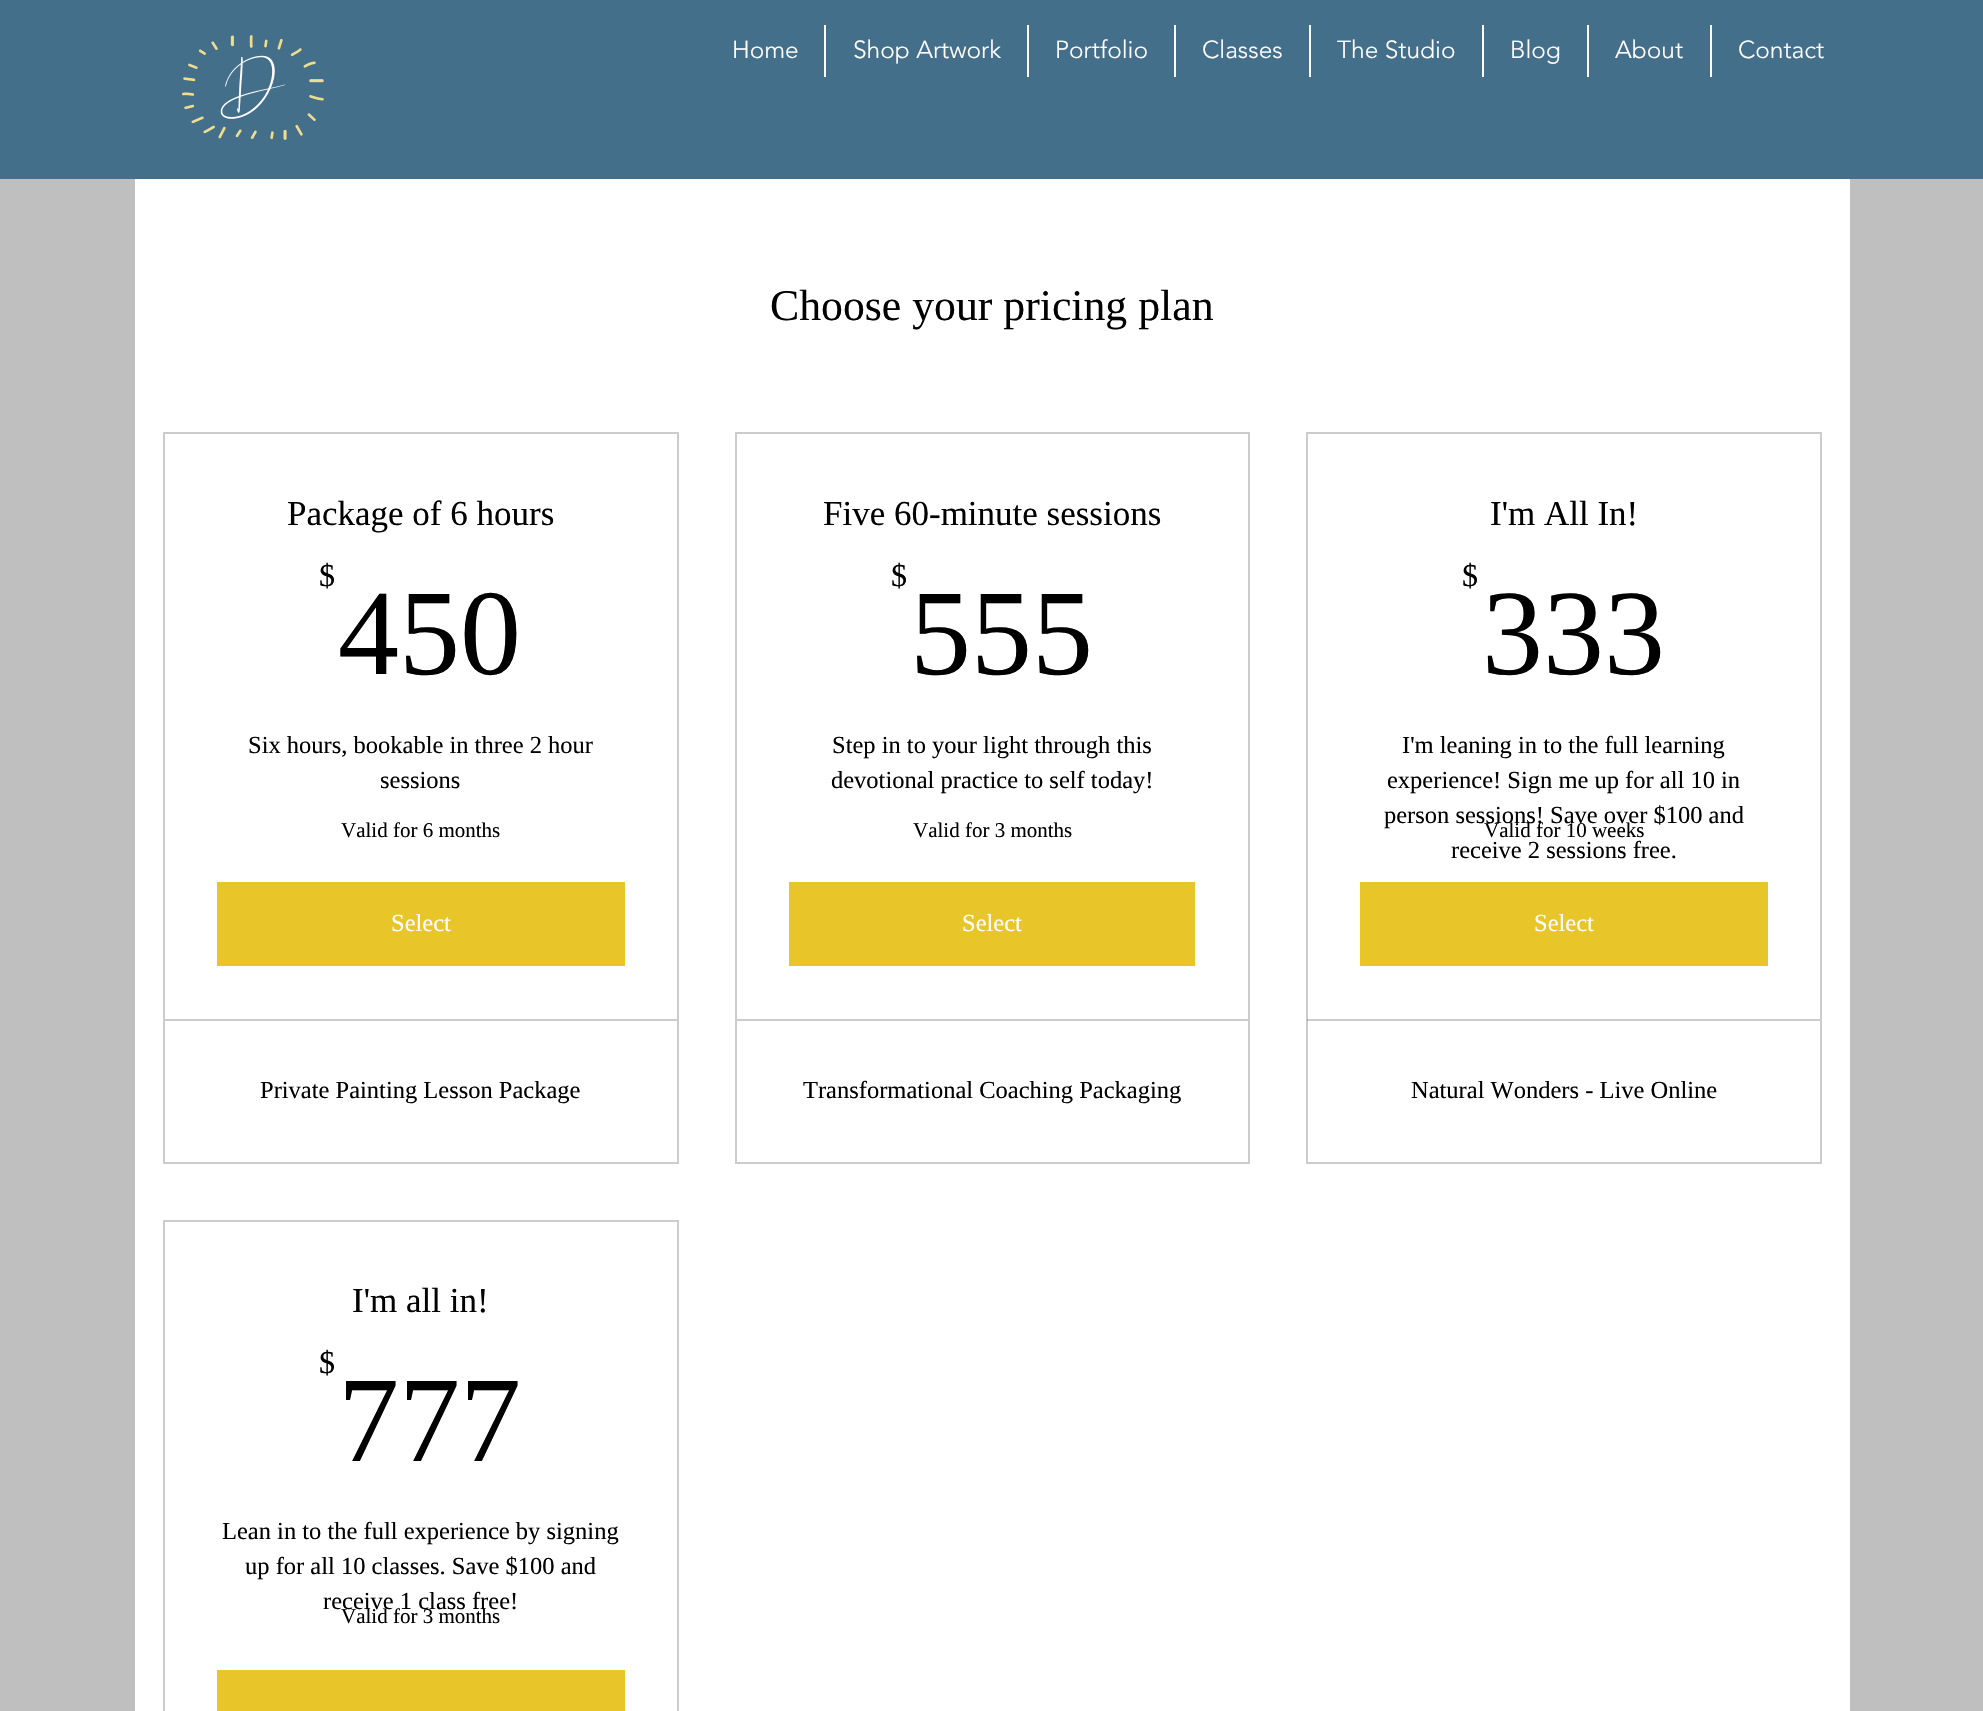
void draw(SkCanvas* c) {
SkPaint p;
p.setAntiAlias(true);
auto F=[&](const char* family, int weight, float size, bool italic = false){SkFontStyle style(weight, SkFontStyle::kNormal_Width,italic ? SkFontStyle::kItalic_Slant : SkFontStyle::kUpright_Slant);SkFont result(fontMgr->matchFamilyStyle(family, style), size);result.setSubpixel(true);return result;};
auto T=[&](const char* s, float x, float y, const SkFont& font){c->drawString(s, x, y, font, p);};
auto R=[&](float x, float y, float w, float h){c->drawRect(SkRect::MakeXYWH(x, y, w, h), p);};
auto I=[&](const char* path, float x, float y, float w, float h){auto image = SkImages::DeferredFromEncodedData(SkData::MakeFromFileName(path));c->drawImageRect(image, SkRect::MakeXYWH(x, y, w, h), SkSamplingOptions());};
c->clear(0xffbfbfbf);
p.setColor(0xff446f8b);
R(0,0,1983,179);
I("1.png",182,35,142,105);
I("2.png",220,55,66,64);
auto f1 = F("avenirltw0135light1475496",300,24.5);
p.setColor(0xffffffff);
T("Home",732,58,f1);
R(824,25,2,52);
T("Shop Artwork",853,58,f1);
R(1027,25,2,52);
T("Portfolio",1055,58,f1);
R(1174,25,2,52);
T("Classes",1202,58,f1);
R(1309,25,2,52);
T("The Studio",1337,58,f1);
R(1482,25,2,52);
T("Blog",1510,58,f1);
R(1587,25,2,52);
T("About",1615,58,f1);
R(1710,25,2,52);
T("Contact",1738,58,f1);
R(135,179,1715,1532);
auto f2 = F("Liberation Serif",400,43.75);
p.setColor(0xff000000);
T("Choose your pricing plan",770,320,f2);
p.setStroke(true);
p.setStrokeWidth(2);
p.setColor(0xffcccccc);
c->drawRect(SkRect::MakeXYWH(164,433,514,730),p);
auto f3 = F("Liberation Serif",400,35);
p.setStroke(false);
p.setColor(0xff000000);
T("Package of 6 hours",287,525,f3);
auto f4 = F("Liberation Serif",400,32);
T("$",319,586,f4);
auto f5 = F("Liberation Serif",400,122);
T("450",338,674,f5);
auto f6 = F("Liberation Serif",400,24.5);
T("Six hours, bookable in three 2 hour",248,753,f6);
T("sessions",380,788,f6);
auto f7 = F("Liberation Serif",400,21);
T("Valid for 6 months",341,837,f7);
p.setColor(0xffe8c529);
R(217,882,408,84);
p.setColor(0xffffffff);
T("Select",391,931,f6);
p.setColor(0xffcccccc);
R(165,1019,512,2);
p.setColor(0xff000000);
T("Private Painting Lesson Package",260,1098,f6);
p.setStroke(true);
p.setColor(0xffcccccc);
c->drawRect(SkRect::MakeXYWH(736,433,513,730),p);
p.setStroke(false);
p.setColor(0xff000000);
T("Five 60-minute sessions",823,525,f3);
T("$",891,586,f4);
T("555",910,674,f5);
T("Step in to your light through this",832,753,f6);
T("devotional practice to self today!",831,788,f6);
T("Valid for 3 months",913,837,f7);
p.setColor(0xffe8c529);
R(789,882,406,84);
p.setColor(0xffffffff);
T("Select",962,931,f6);
p.setColor(0xffcccccc);
R(737,1019,511,2);
p.setColor(0xff000000);
T("Transformational Coaching Packaging",803,1098,f6);
p.setStroke(true);
p.setColor(0xffcccccc);
c->drawRect(SkRect::MakeXYWH(1307,433,514,730),p);
p.setStroke(false);
p.setColor(0xff000000);
T("I'm All In!",1490,525,f3);
T("$",1462,586,f4);
T("333",1482,674,f5);
T("I'm leaning in to the full learning",1402,753,f6);
T("experience! Sign me up for all 10 in",1387,788,f6);
T("person sessions! Save over $100 and",1384,823,f6);
T("receive 2 sessions free.",1451,858,f6);
T("Valid for 10 weeks",1484,837,f7);
p.setColor(0xffe8c529);
R(1360,882,408,84);
p.setColor(0xffffffff);
T("Select",1534,931,f6);
p.setColor(0x33000000);
R(1307,1019,513,2);
p.setColor(0xff000000);
T("Natural Wonders - Live Online",1411,1098,f6);
p.setStroke(true);
p.setColor(0xffcccccc);
c->drawRect(SkRect::MakeXYWH(164,1221,514,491),p);
p.setStroke(false);
p.setColor(0xff000000);
T("I'm all in!",352,1312,f3);
T("$",319,1373,f4);
T("777",338,1461,f5);
T("Lean in to the full experience by signing",222,1539,f6);
T("up for all 10 classes. Save $100 and",245,1574,f6);
T("receive 1 class free!",323,1609,f6);
T("Valid for 3 months",341,1623,f7);
p.setColor(0xffe8c529);
R(217,1670,408,41);
}
